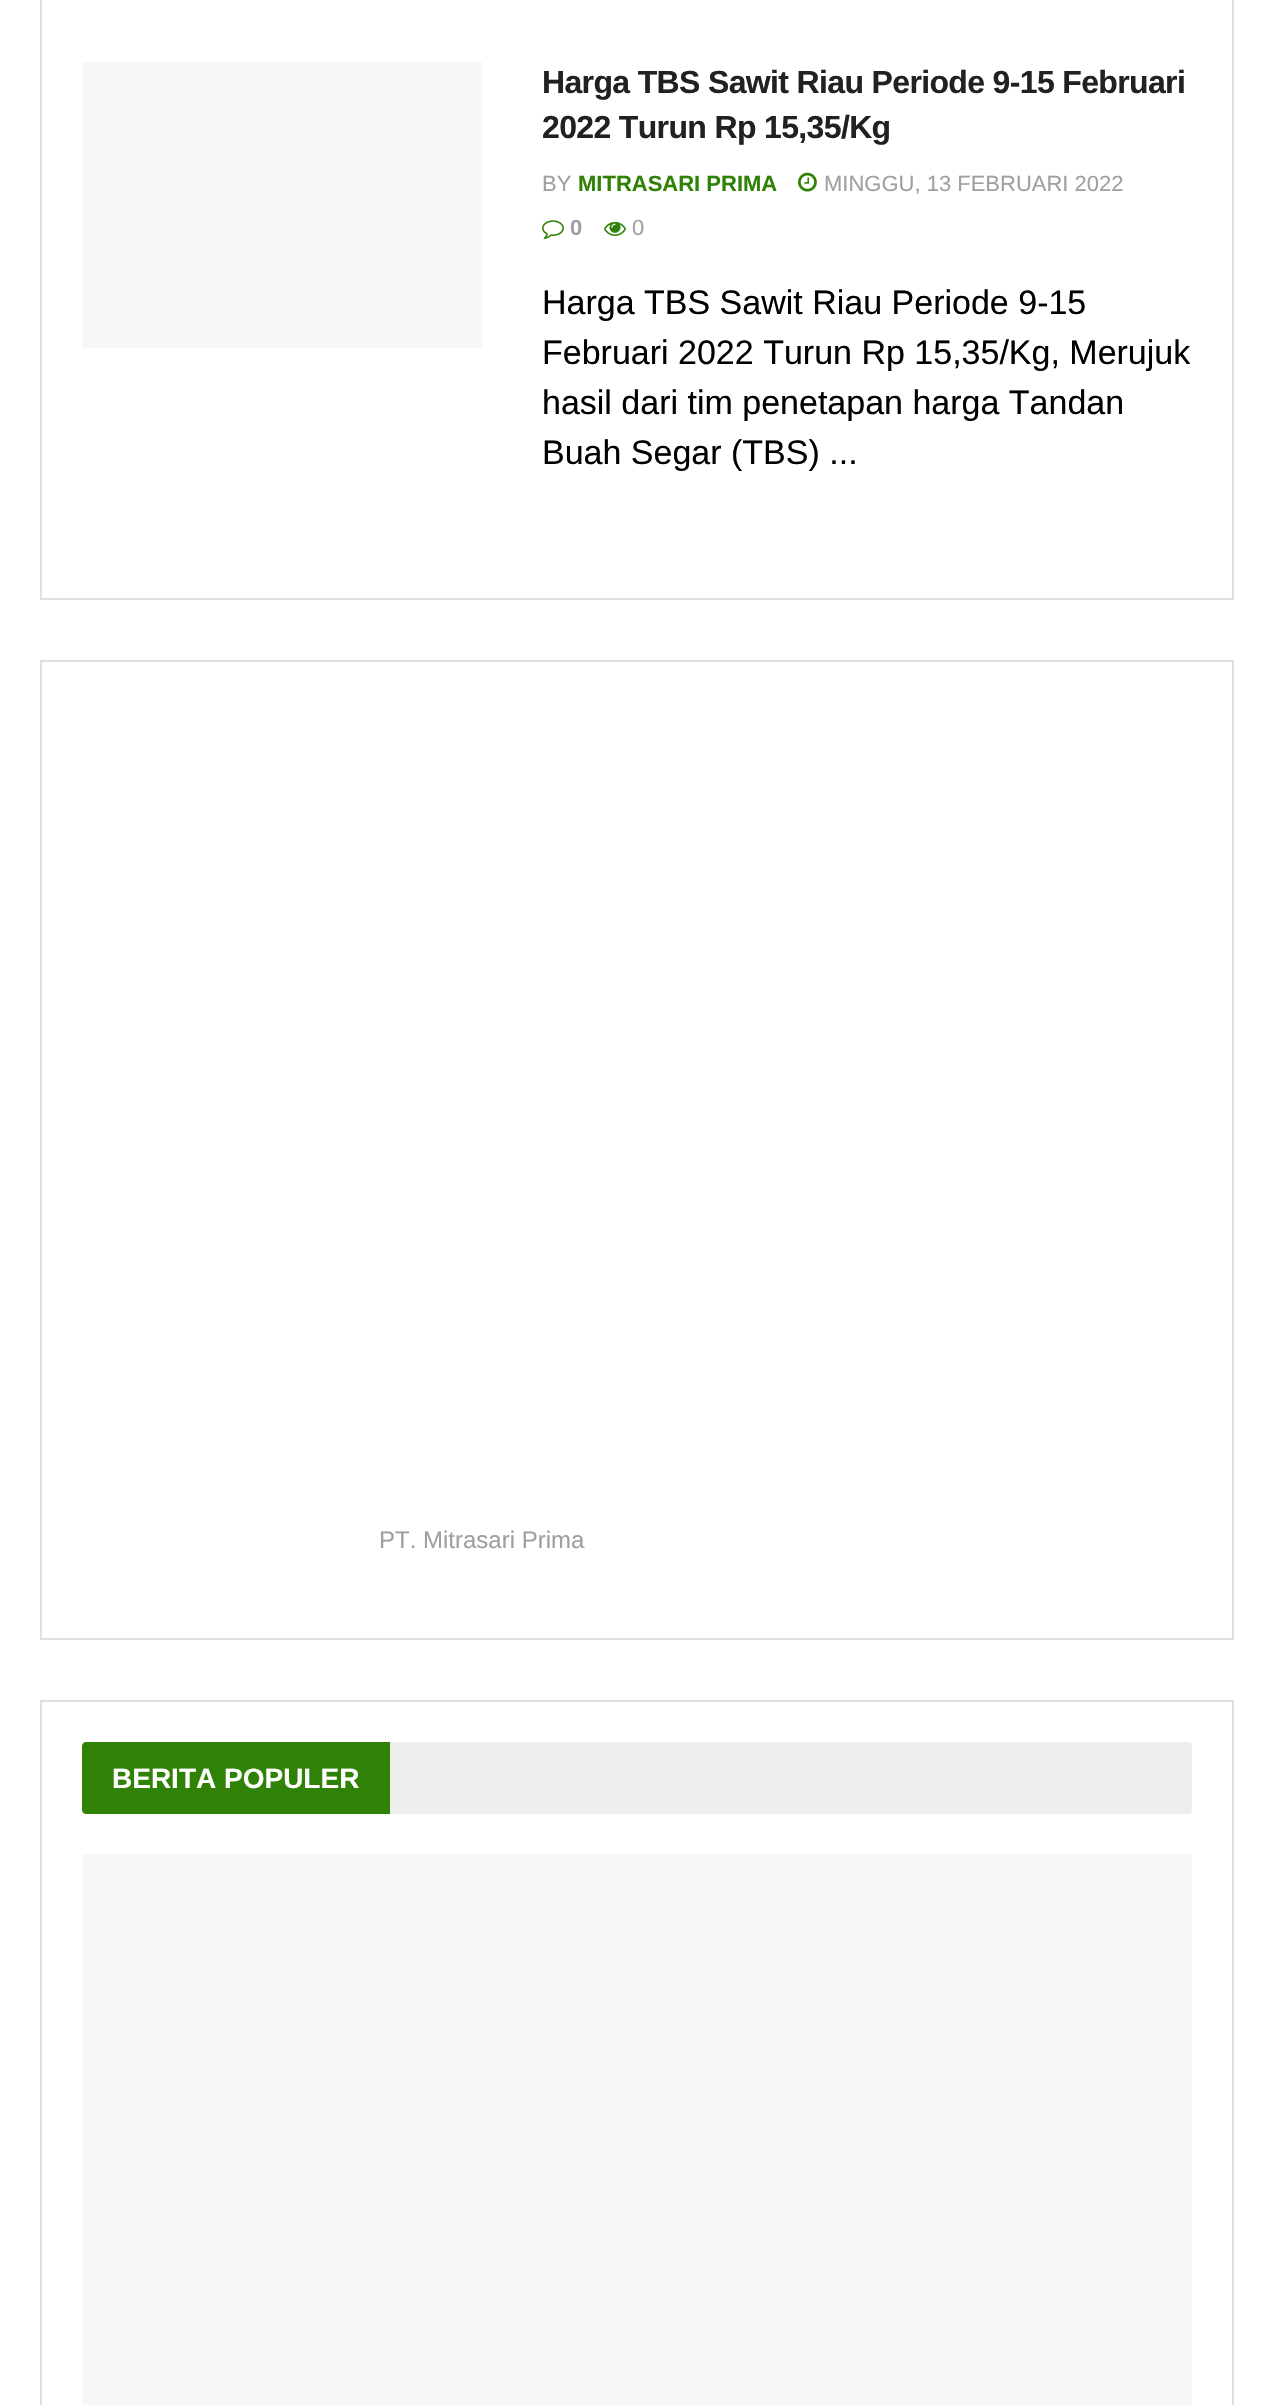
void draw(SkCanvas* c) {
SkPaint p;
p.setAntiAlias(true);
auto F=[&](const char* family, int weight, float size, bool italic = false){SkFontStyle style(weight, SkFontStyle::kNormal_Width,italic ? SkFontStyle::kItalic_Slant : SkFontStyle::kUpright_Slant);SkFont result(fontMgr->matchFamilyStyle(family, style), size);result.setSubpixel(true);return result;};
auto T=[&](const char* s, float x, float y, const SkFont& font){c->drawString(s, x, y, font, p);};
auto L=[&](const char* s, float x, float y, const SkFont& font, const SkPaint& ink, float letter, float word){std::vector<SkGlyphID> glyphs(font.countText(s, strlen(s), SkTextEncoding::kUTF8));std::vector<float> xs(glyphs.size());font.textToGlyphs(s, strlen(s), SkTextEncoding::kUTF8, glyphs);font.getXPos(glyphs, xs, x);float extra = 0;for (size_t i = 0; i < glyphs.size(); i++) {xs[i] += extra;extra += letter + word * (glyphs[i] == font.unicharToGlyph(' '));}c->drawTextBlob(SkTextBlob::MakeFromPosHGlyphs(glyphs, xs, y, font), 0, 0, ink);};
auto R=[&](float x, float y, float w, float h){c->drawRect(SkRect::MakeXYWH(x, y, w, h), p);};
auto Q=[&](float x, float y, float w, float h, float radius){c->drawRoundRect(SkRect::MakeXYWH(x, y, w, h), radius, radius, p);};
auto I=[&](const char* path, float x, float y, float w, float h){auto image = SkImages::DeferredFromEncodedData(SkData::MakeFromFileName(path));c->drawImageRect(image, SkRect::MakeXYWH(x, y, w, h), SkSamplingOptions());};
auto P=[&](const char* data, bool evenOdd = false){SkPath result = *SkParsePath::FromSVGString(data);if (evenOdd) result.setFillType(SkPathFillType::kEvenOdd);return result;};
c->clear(0xffffffff);
p.setStroke(true);
p.setStrokeWidth(2);
p.setColor(0xffe0e0e0);
c->drawRect(SkRect::MakeXYWH(41,-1,1192,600),p);
p.setStroke(false);
p.setColor(0xfff7f7f7);
R(82,62,400,286);
auto f1 = F("Liberation Sans",700,32);
p.setColor(0xff212121);
L("Harga TBS Sawit Riau Periode 9-15 Februari",542,93,f1,p,-.65,0);
L("2022 Turun Rp 15,35/Kg",542,138,f1,p,-.65,0);
auto f2 = F("Liberation Sans",400,22);
p.setColor(0xffa0a0a0);
T("BY",542,191,f2);
auto f3 = F("Liberation Sans",700,22);
p.setColor(0xff308207);
T("MITRASARI PRIMA",578,191,f3);
I("1.png",798,172,19,20);
p.setColor(0xffa0a0a0);
T("MINGGU, 13 FEBRUARI 2022",824,191,f2);
I("2.png",542,220,22,20);
T("0",570,235,f3);
I("3.png",604,221,22,15);
T("0",632,235,f2);
auto f4 = F("Liberation Sans",400,34);
p.setColor(0xff000000);
T("Harga TBS Sawit Riau Periode 9-15",542,314,f4);
T("Februari 2022 Turun Rp 15,35/Kg, Mеrujuk",542,364,f4);
T("hаѕіl dаrі tim реnеtараn harga Tаndаn",542,414,f4);
T("Buаh Sеgаr (TBS) ...",542,464,f4);
p.setStroke(true);
p.setColor(0xffe0e0e0);
c->drawRect(SkRect::MakeXYWH(41,661,1192,978),p);
auto f5 = F("Liberation Sans",400,24);
p.setStroke(false);
p.setColor(0xffa0a0a0);
T("PT. Mitrasari Prima",379,1548,f5);
p.setStroke(true);
p.setColor(0xffe0e0e0);
c->drawRect(SkRect::MakeXYWH(41,1701,1192,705),p);
p.setStroke(false);
p.setColor(0xffeeeeee);
Q(82,1742,1110,72,4);
p.setColor(0xff308207);
c->drawPath(P("M86 1742h304v72h-304c-2 0-4-2-4-4v-64c0-2 2-4 4-4z"),p);
auto f6 = F("Liberation Sans",700,28);
p.setColor(0xffffffff);
T("BERITA POPULER",112,1788,f6);
p.setColor(0xfff7f7f7);
R(82,1854,1110,551);
}
